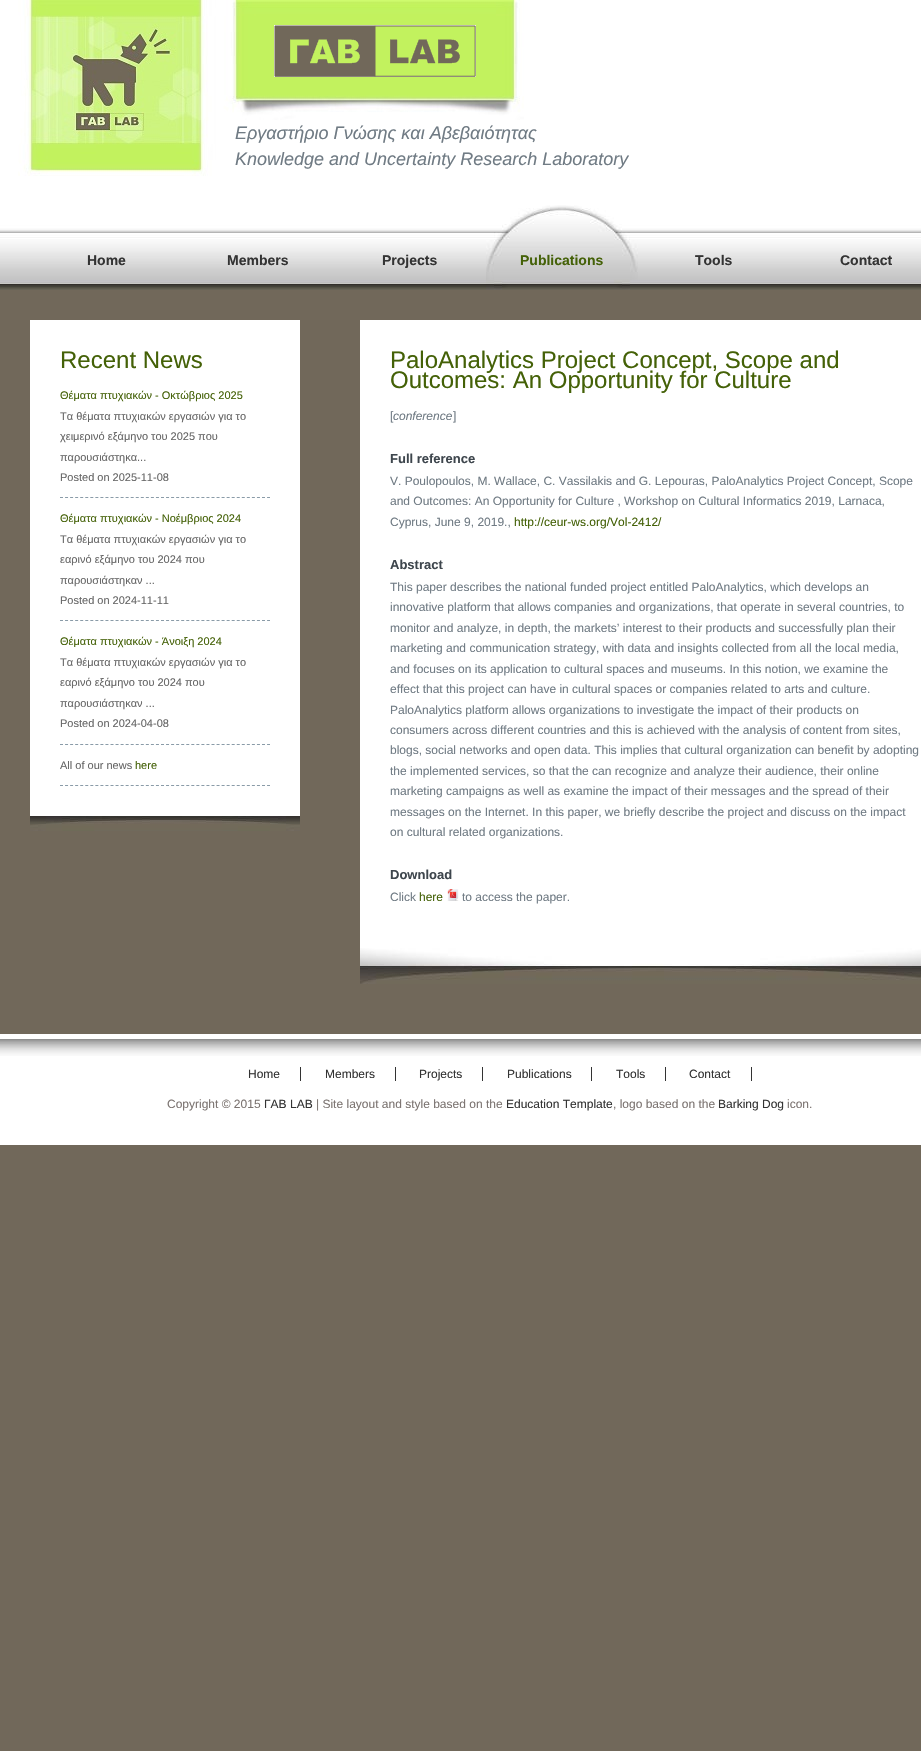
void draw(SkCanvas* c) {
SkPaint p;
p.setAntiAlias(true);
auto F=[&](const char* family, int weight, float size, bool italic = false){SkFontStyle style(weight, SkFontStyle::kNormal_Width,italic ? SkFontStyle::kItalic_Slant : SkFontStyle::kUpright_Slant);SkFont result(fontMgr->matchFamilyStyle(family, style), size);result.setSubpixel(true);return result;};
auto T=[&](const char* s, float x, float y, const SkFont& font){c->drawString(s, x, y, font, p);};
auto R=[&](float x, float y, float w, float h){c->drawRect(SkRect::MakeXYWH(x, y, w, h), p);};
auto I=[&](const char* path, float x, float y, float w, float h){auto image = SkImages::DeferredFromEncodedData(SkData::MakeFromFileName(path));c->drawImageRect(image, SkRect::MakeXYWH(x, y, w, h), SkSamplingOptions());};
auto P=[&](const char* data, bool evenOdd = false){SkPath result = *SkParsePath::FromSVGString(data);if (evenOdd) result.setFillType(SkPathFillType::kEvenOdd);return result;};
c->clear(0xff71685a);
p.setColor(0xffffffff);
R(0,0,921,200);
I("1.png",18,0,506,176);
I("2.png",274,25,202,52);
auto f1 = F("Liberation Sans",400,18,true);
p.setColor(0xff707b84);
T("Εργαστήριο Γνώσης και Αβεβαιότητας",235,139,f1);
T("Knowledge and Uncertainty Research Laboratory",235,165,f1);
I("3.png",0,200,921,90);
auto f2 = F("Liberation Sans",700,14);
p.setColor(0xff333333);
T("Home",87,265,f2);
T("Members",227,265,f2);
T("Projects",382,265,f2);
I("4.png",486,205,152,85);
p.setColor(0xff446107);
T("Publications",520,265,f2);
p.setColor(0xff333333);
T("Tools",695,265,f2);
T("Contact",840,265,f2);
p.setColor(0xffffffff);
R(30,320,270,496);
auto f3 = F("Liberation Sans",400,24);
p.setColor(0xff446107);
T("Recent News",60,368,f3);
p.setStroke(true);
p.setStrokeWidth(1);
p.setColor(0xff8a9ba8);
p.setPathEffect(SkDashPathEffect::Make({{3,2.05f}}, 0));
c->drawPath(P("M60 497.5h210"),p);
p.setPathEffect(nullptr);
auto f4 = F("Liberation Sans",400,11);
p.setStroke(false);
p.setColor(0xff446107);
T("Θέματα πτυχιακών - Οκτώβριος 2025",60,399,f4);
p.setColor(0xff666666);
T("Τα θέματα πτυχιακών εργασιών για το",60,420,f4);
T("χειμερινό εξάμηνο του 2025 που",60,440,f4);
T("παρουσιάστηκα...",60,461,f4);
T("Posted on 2025-11-08",60,481,f4);
p.setStroke(true);
p.setColor(0xff8a9ba8);
p.setPathEffect(SkDashPathEffect::Make({{3,2.05f}}, 0));
c->drawPath(P("M60 620.5h210"),p);
p.setPathEffect(nullptr);
p.setStroke(false);
p.setColor(0xff446107);
T("Θέματα πτυχιακών - Νοέμβριος 2024",60,522,f4);
p.setColor(0xff666666);
T("Τα θέματα πτυχιακών εργασιών για το",60,543,f4);
T("εαρινό εξάμηνο του 2024 που",60,563,f4);
T("παρουσιάστηκαν ...",60,584,f4);
T("Posted on 2024-11-11",60,604,f4);
p.setStroke(true);
p.setColor(0xff8a9ba8);
p.setPathEffect(SkDashPathEffect::Make({{3,2.05f}}, 0));
c->drawPath(P("M60 744.5h210"),p);
p.setPathEffect(nullptr);
p.setStroke(false);
p.setColor(0xff446107);
T("Θέματα πτυχιακών - Άνοιξη 2024",60,645,f4);
p.setColor(0xff666666);
T("Τα θέματα πτυχιακών εργασιών για το",60,666,f4);
T("εαρινό εξάμηνο του 2024 που",60,686,f4);
T("παρουσιάστηκαν ...",60,707,f4);
T("Posted on 2024-04-08",60,727,f4);
p.setStroke(true);
p.setColor(0xff8a9ba8);
p.setPathEffect(SkDashPathEffect::Make({{3,2.05f}}, 0));
c->drawPath(P("M60 785.5h210"),p);
p.setPathEffect(nullptr);
p.setStroke(false);
p.setColor(0xff666666);
T("All of our news",60,769,f4);
p.setColor(0xff446107);
T("here",135,769,f4);
I("5.png",30,816,270,15);
p.setColor(0xffffffff);
R(360,320,561,628);
p.setColor(0xff446107);
T("PaloAnalytics Project Concept, Scope and",390,368,f3);
T("Outcomes: An Opportunity for Culture",390,388,f3);
auto f5 = F("Liberation Sans",400,12);
p.setColor(0xff707b84);
T("[",390,420,f5);
auto f6 = F("Liberation Sans",400,12,true);
T("conference",393,420,f6);
T("]",453,420,f5);
auto f7 = F("Liberation Sans",700,13);
p.setColor(0xff3e464d);
T("Full reference",390,463,f7);
p.setColor(0xff707b84);
T("V. Poulopoulos, M. Wallace, C. Vassilakis and G. Lepouras, PaloAnalytics Project Concept, Scope",390,485,f5);
T("and Outcomes: An Opportunity for Culture , Workshop on Cultural Informatics 2019, Larnaca,",390,505,f5);
T("Cyprus, June 9, 2019.,",390,526,f5);
p.setColor(0xff446107);
T("http://ceur-ws.org/Vol-2412/",514,526,f5);
p.setColor(0xff3e464d);
T("Abstract",390,569,f7);
p.setColor(0xff707b84);
T("This paper describes the national funded project entitled PaloAnalytics, which develops an",390,591,f5);
T("innovative platform that allows companies and organizations, that operate in several countries, to",390,611,f5);
T("monitor and analyze, in depth, the markets’ interest to their products and successfully plan their",390,632,f5);
T("marketing and communication strategy, with data and insights collected from all the local media,",390,652,f5);
T("and focuses on its application to cultural spaces and museums. In this notion, we examine the",390,673,f5);
T("effect that this project can have in cultural spaces or companies related to arts and culture.",390,693,f5);
T("PaloAnalytics platform allows organizations to investigate the impact of their products on",390,714,f5);
T("consumers across different countries and this is achieved with the analysis of content from sites,",390,734,f5);
T("blogs, social networks and open data. This implies that cultural organization can benefit by adopting",390,754,f5);
T("the implemented services, so that the can recognize and analyze their audience, their online",390,775,f5);
T("marketing campaigns as well as examine the impact of their messages and the spread of their",390,795,f5);
T("messages on the Internet. In this paper, we briefly describe the project and discuss on the impact",390,816,f5);
T("on cultural related organizations.",390,836,f5);
p.setColor(0xff3e464d);
T("Download",390,879,f7);
p.setColor(0xff707b84);
T("Click",390,901,f5);
p.setColor(0xff446107);
T("here",419,901,f5);
I("6.png",447,889,12,12);
p.setColor(0xff707b84);
T("to access the paper.",462,901,f5);
I("7.png",360,948,561,36);
p.setColor(0xffffffff);
R(0,1034,921,111);
I("8.png",0,1039,921,17);
p.setColor(0xff333333);
T("Home",248,1078,f5);
R(300,1067,1,14);
T("Members",325,1078,f5);
R(395,1067,1,14);
T("Projects",419,1078,f5);
R(482,1067,1,14);
T("Publications",507,1078,f5);
R(591,1067,1,14);
T("Tools",616,1078,f5);
R(665,1067,1,14);
T("Contact",689,1078,f5);
R(751,1067,1,14);
p.setColor(0xff7c7471);
T("Copyright © 2015",167,1108,f5);
p.setColor(0xff333333);
T("ΓΑΒ LAB",264,1108,f5);
p.setColor(0xff7c7471);
T("| Site layout and style based on the",316,1108,f5);
p.setColor(0xff333333);
T("Education Template",506,1108,f5);
p.setColor(0xff7c7471);
T(", logo based on the",613,1108,f5);
p.setColor(0xff333333);
T("Barking Dog",718,1108,f5);
p.setColor(0xff7c7471);
T("icon.",787,1108,f5);
}
